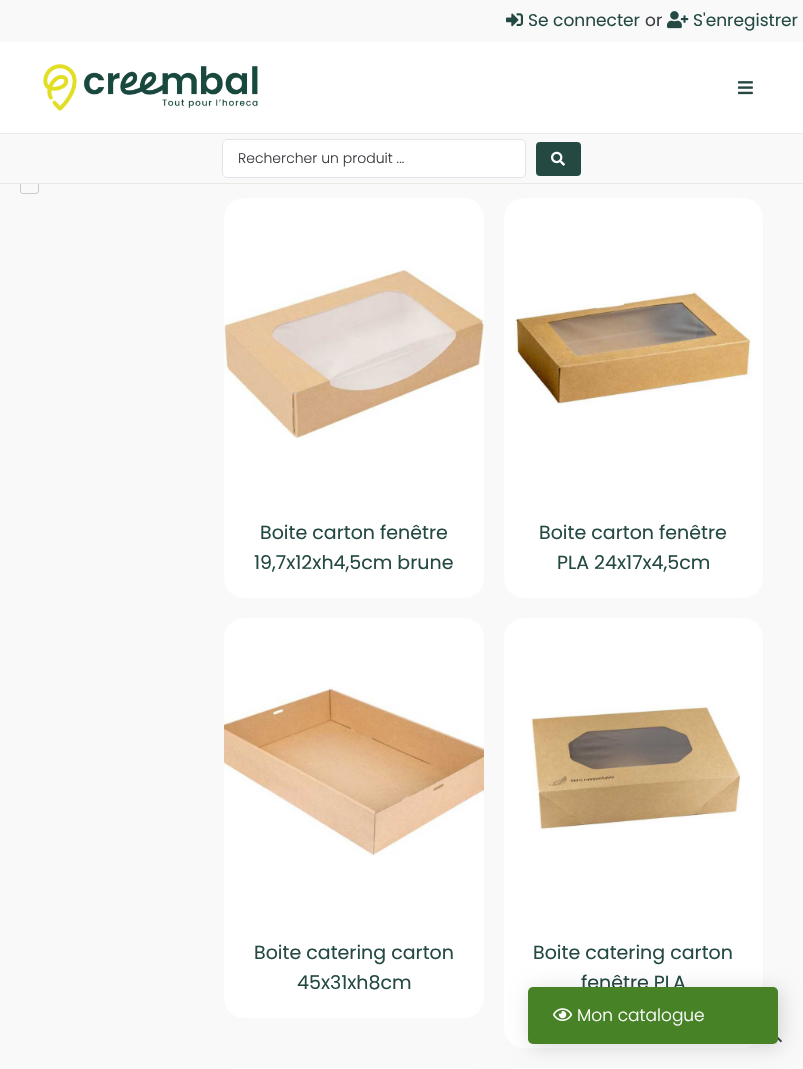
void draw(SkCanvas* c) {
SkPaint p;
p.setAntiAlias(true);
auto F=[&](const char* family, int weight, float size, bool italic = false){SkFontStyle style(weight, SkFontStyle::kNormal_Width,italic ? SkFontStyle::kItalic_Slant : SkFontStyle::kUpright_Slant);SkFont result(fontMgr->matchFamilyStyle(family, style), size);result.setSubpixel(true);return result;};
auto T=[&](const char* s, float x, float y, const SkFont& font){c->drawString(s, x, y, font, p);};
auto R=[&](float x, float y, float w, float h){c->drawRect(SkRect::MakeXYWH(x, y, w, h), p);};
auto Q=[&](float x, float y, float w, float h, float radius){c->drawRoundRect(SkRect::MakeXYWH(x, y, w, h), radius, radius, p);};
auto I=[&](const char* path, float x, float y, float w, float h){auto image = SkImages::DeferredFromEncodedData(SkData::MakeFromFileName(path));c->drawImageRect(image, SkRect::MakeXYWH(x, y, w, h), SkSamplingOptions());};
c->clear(0xfff9f9f9);
I("1.png",506,13,17,14);
auto f1 = F("Poppins",400,17);
p.setColor(0xff244943);
T("Se connecter",528,26,f1);
p.setColor(0xff3b3d42);
T("or",645,26,f1);
I("2.png",667,11,22,18);
p.setColor(0xff244943);
T("S'enregistrer",693,26,f1);
p.setColor(0xffffffff);
R(0,42,803,91);
p.setColor(0xffe9e9e9);
R(0,133,803,1);
I("3.png",43,64,215,47);
I("4.png",738,81,15,14);
p.setStroke(true);
p.setStrokeWidth(1);
p.setColor(0xffcccccc);
c->drawRoundRect(SkRect::MakeXYWH(20.5,175.5,18,18),2.5,2.5,p);
p.setStroke(false);
p.setColor(0xfff9f9f9);
R(20,175,19,8);
p.setColor(0xffe9e9e9);
R(0,183,803,1);
p.setColor(0xffffffff);
c->drawRoundRect(SkRect::MakeXYWH(222.5,139.5,303,38),4.5,4.5,p);
p.setStroke(true);
p.setColor(0xffe1e5eb);
c->drawRoundRect(SkRect::MakeXYWH(222.5,139.5,303,38),4.5,4.5,p);
auto f2 = F("Poppins",300,14);
p.setStroke(false);
p.setColor(0xff3b3d42);
T("Rechercher un produit ...",238,163,f2);
p.setColor(0xff244943);
Q(536,142,45,34,4);
I("5.png",551,151,14,15);
p.setColor(0xffffffff);
Q(224,198,260,400,20);
I("6.png",224,267,260,175);
auto f3 = F("Poppins",400,19);
p.setColor(0xff244943);
T("Boite carton fenêtre",260,539,f3);
T("19,7x12xh4,5cm brune",254,569,f3);
p.setColor(0xffffffff);
Q(504,198,259,400,20);
I("7.png",514,291,238,114);
p.setColor(0xff244943);
T("Boite carton fenêtre",539,539,f3);
T("PLA 24x17x4,5cm",557,569,f3);
p.setColor(0xffffffff);
Q(224,618,260,400,20);
I("8.png",224,687,260,169);
p.setColor(0xff244943);
T("Boite catering carton",254,959,f3);
T("45x31xh8cm",297,989,f3);
p.setColor(0xffffffff);
Q(504,618,259,430,20);
I("9.png",531,705,211,126);
p.setColor(0xff244943);
T("Boite catering carton",533,959,f3);
T("fenêtre PLA",581,989,f3);
p.setColor(0xffffffff);
Q(224,1068,260,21,20);
Q(504,1068,259,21,20);
I("11.png",777,1037,5,6);
p.setColor(0x26000000);
p.setMaskFilter(SkMaskFilter::MakeBlur(kNormal_SkBlurStyle, 10));
c->drawRoundRect(SkRect::MakeXYWH(531,990,250,57),5,5,p);
p.setMaskFilter(nullptr);
p.setColor(0xff488227);
Q(528,987,250,57,5);
I("10.png",553,1008,20,13);
auto f4 = F("Poppins",300,17);
p.setColor(0xffffffff);
T("Mon catalogue",577,1021,f4);
}
